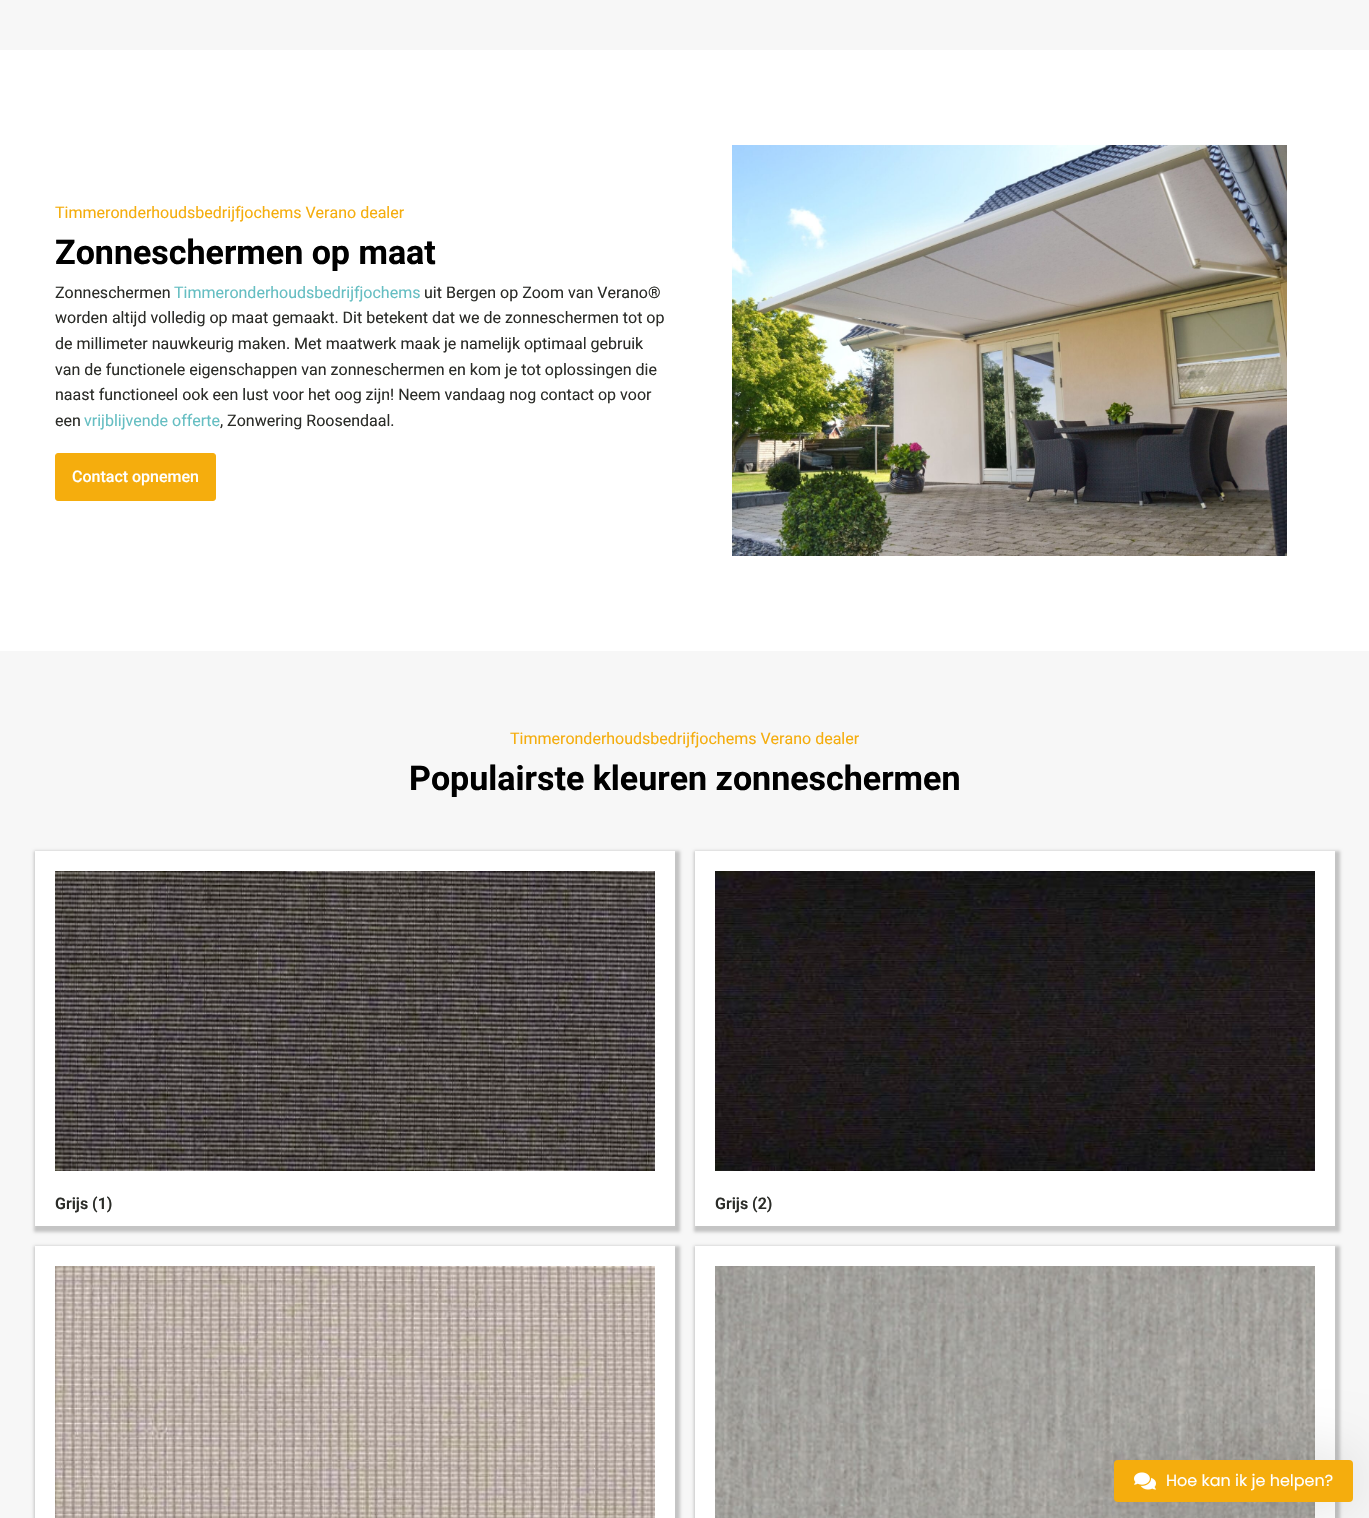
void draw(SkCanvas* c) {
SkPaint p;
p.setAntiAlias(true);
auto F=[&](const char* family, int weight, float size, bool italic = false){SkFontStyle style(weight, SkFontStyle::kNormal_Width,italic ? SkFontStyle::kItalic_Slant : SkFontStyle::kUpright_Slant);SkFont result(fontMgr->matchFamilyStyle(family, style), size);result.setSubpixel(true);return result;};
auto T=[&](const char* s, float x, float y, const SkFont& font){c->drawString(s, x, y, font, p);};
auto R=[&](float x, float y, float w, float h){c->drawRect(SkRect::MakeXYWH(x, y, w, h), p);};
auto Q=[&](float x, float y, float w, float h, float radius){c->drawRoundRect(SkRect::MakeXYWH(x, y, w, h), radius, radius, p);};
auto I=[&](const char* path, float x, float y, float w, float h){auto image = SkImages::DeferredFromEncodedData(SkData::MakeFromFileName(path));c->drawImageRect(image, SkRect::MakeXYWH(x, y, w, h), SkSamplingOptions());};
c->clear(0xffffffff);
p.setColor(0xfff7f7f7);
R(0,0,1369,50);
auto f1 = F("Roboto",400,16);
p.setColor(0xfff5ad0d);
T("Timmeronderhoudsbedrijfjochems Verano dealer",55,218,f1);
auto f2 = F("Roboto",700,34);
p.setColor(0xff000000);
T("Zonneschermen op maat",55,264,f2);
p.setColor(0xff2b2c28);
T("Zonneschermen",55,298,f1);
p.setColor(0xff65bec2);
T("Timmeronderhoudsbedrijfjochems",174,298,f1);
p.setColor(0xff2b2c28);
T("uit Bergen op Zoom van Verano®",424,298,f1);
T("worden altijd volledig op maat gemaakt. Dit betekent dat we de zonneschermen tot op",55,323,f1);
T("de millimeter nauwkeurig maken. Met maatwerk maak je namelijk optimaal gebruik",55,349,f1);
T("van de functionele eigenschappen van zonneschermen en kom je tot oplossingen die",55,375,f1);
T("naast functioneel ook een lust voor het oog zijn! Neem vandaag nog contact op voor",55,400,f1);
T("een",55,426,f1);
p.setColor(0xff65bec2);
T("vrijblijvende offerte",84,426,f1);
p.setColor(0xff2b2c28);
T(", Zonwering Roosendaal.",220,426,f1);
p.setColor(0xfff5ad0d);
c->drawRoundRect(SkRect::MakeXYWH(55.5,453.5,160,47),2.5,2.5,p);
p.setStroke(true);
p.setStrokeWidth(1);
c->drawRoundRect(SkRect::MakeXYWH(55.5,453.5,160,47),2.5,2.5,p);
auto f3 = F("Roboto",500,16);
p.setStroke(false);
p.setColor(0xffffffff);
T("Contact opnemen",72,482,f3);
I("1.png",732,145,555,411);
p.setColor(0xfff7f7f7);
R(0,651,1369,867);
p.setColor(0xfff5ad0d);
T("Timmeronderhoudsbedrijfjochems Verano dealer",510,744,f1);
p.setColor(0xff000000);
T("Populairste kleuren zonneschermen",409,790,f2);
p.setColor(0xffc4c4c4);
p.setMaskFilter(SkMaskFilter::MakeBlur(kNormal_SkBlurStyle, 1.5));
c->drawRect(SkRect::MakeXYWH(34,851,646,381),p);
p.setMaskFilter(nullptr);
p.setColor(0xffffffff);
R(35,851,640,375);
I("2.png",55,871,600,300);
auto f4 = F("Roboto",600,16);
p.setColor(0xff2b2c28);
T("Grijs (1)",55,1209,f4);
p.setColor(0xffc4c4c4);
p.setMaskFilter(SkMaskFilter::MakeBlur(kNormal_SkBlurStyle, 1.5));
c->drawRect(SkRect::MakeXYWH(694,851,646,381),p);
p.setMaskFilter(nullptr);
p.setColor(0xffffffff);
R(695,851,640,375);
I("3.png",715,871,600,300);
p.setColor(0xff2b2c28);
T("Grijs (2)",715,1209,f4);
p.setColor(0xffc4c4c4);
p.setMaskFilter(SkMaskFilter::MakeBlur(kNormal_SkBlurStyle, 1.5));
c->drawRect(SkRect::MakeXYWH(34,1246,646,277),p);
p.setMaskFilter(nullptr);
p.setColor(0xffffffff);
R(35,1246,640,272);
I("4.png",55,1266,600,252);
p.setColor(0xffc4c4c4);
p.setMaskFilter(SkMaskFilter::MakeBlur(kNormal_SkBlurStyle, 1.5));
c->drawRect(SkRect::MakeXYWH(694,1246,646,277),p);
p.setMaskFilter(nullptr);
p.setColor(0xffffffff);
R(695,1246,640,272);
I("5.png",715,1266,600,252);
p.setColor(0x26000000);
p.setMaskFilter(SkMaskFilter::MakeBlur(kNormal_SkBlurStyle, 30));
c->drawRoundRect(SkRect::MakeXYWH(1114,1460,239,42),4,4,p);
p.setMaskFilter(nullptr);
p.setColor(0xfff5ad0d);
Q(1114,1460,239,42,4);
I("6.png",1134,1472,22,18);
auto f5 = F("Poppins",400,16);
p.setColor(0xffffffff);
T("Hoe kan ik je helpen?",1166,1486,f5);
}
